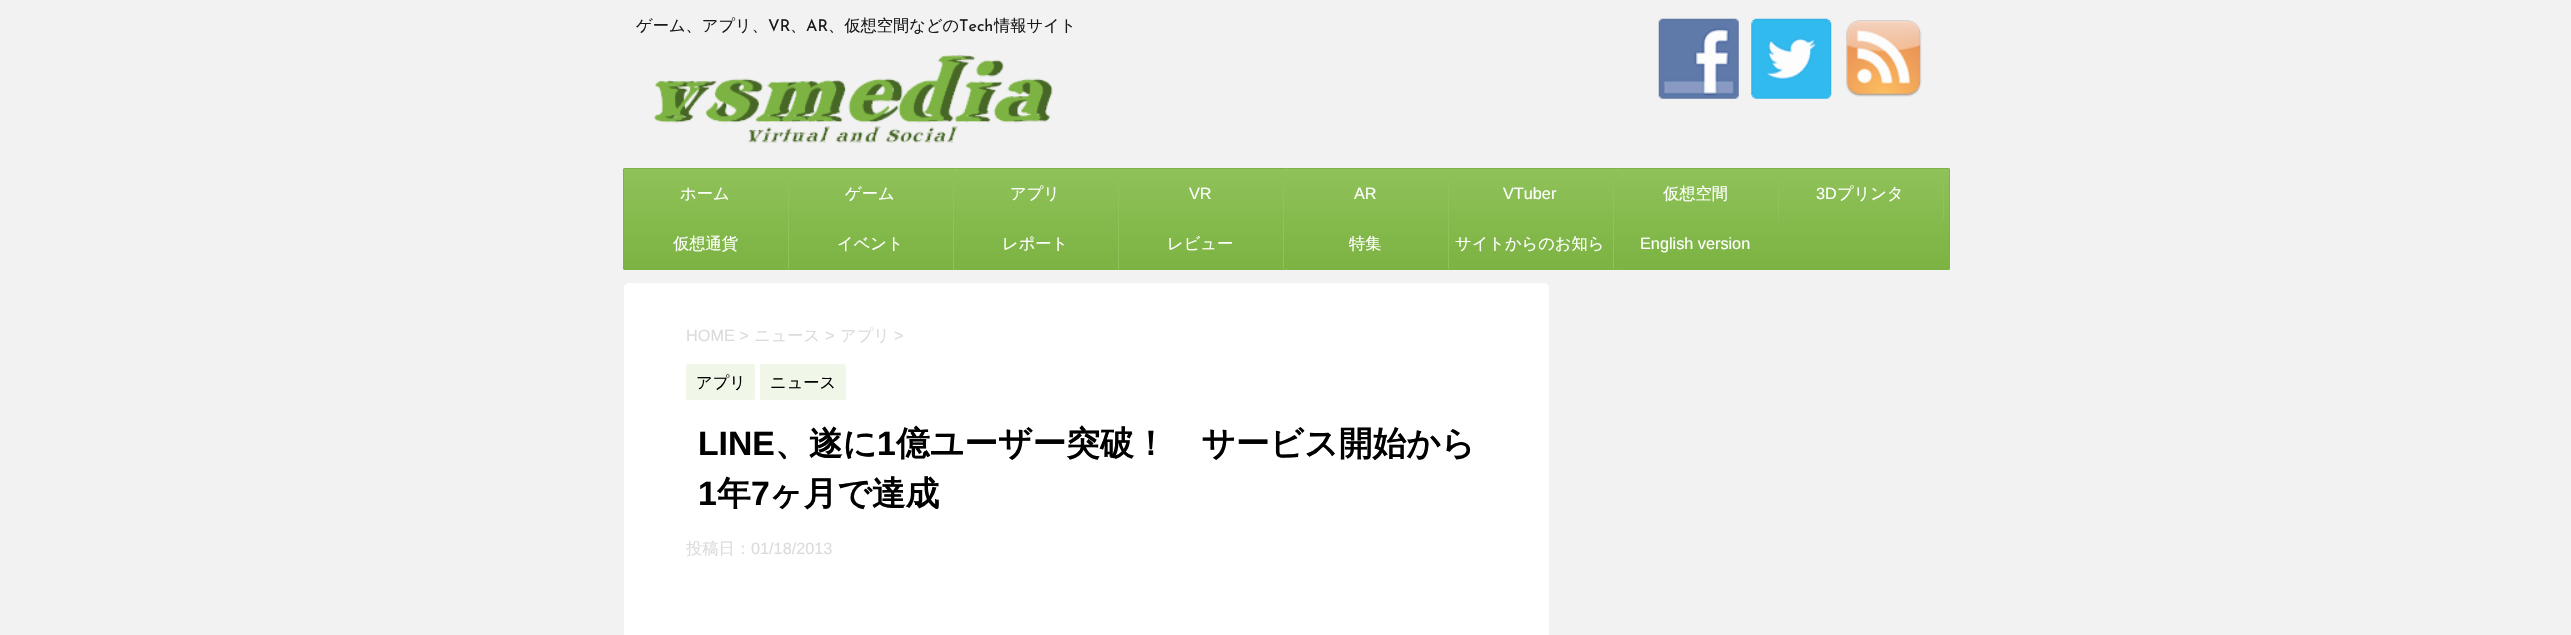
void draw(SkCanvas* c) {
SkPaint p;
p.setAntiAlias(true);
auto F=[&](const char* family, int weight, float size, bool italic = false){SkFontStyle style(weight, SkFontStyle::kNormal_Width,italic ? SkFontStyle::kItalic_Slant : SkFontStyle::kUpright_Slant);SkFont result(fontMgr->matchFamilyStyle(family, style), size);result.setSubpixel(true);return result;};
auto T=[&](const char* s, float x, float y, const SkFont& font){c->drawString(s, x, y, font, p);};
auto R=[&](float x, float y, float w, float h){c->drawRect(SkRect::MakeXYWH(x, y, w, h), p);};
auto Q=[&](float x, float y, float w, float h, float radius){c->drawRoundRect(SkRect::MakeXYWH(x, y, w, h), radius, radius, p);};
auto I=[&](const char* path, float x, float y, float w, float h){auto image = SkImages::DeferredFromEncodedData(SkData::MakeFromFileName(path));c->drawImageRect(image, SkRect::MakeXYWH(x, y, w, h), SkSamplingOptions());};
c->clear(0xfff2f2f2);
auto f1 = F("WenQuanYi Zen Hei",500,16.25);
p.setColor(0xff1a1a1a);
T("ゲーム、アプリ、",636,31,f1);
auto f2 = F("Josefin Sans",400,16.25);
T("VR",768,31,f2);
T("、",790,31,f1);
T("AR",806,31,f2);
T("、仮想空間などの",828,31,f1);
T("Tech",959,31,f2);
T("情報サイト",994,31,f1);
I("1.png",653,55,400,88);
I("2.png",1658,18,81,81);
I("3.png",1751,18,81,81);
I("4.png",1846,20,76,77);
{
const SkColor colors[] = {0xff8fc25a,0xff7cb342};
const float stops[] = {0,1};
const SkPoint ends[] = {{1286,169}, {1286,269}};
p.setShader(SkGradientShader::MakeLinear(ends, colors, stops, 2, SkTileMode::kClamp));
p.setAlpha(255);
}
R(624,169,1325,100);
p.setStroke(true);
p.setStrokeWidth(1);
p.setShader(nullptr);
p.setColor(0xff7cb342);
c->drawRoundRect(SkRect::MakeXYWH(623.5,168.5,1326,101),.5,.5,p);
p.setStroke(false);
p.setColor(0xff8fc25a);
R(788,179,1,90);
p.setColor(0xffffffff);
T("ホーム",680,199,f1);
p.setColor(0xff8fc25a);
R(953,179,1,90);
p.setColor(0xffffffff);
T("ゲーム",845,199,f1);
p.setColor(0xff8fc25a);
R(1118,179,1,90);
p.setColor(0xffffffff);
T("アプリ",1010,199,f1);
p.setColor(0xff8fc25a);
R(1283,179,1,90);
auto f3 = F("Liberation Sans",400,16.25);
p.setColor(0xffffffff);
T("VR",1189,199,f3);
p.setColor(0xff8fc25a);
R(1448,179,1,90);
p.setColor(0xffffffff);
T("AR",1354,199,f3);
p.setColor(0xff8fc25a);
R(1613,179,1,90);
p.setColor(0xffffffff);
T("VTuber",1503,199,f3);
p.setColor(0xff8fc25a);
R(1778,179,1,40);
p.setColor(0xffffffff);
T("仮想空間",1663,199,f1);
p.setColor(0xff8fc25a);
R(1943,179,1,40);
p.setColor(0xffffffff);
T("3D",1816,199,f3);
T("プリンタ",1837,199,f1);
T("仮想通貨",673,249,f1);
T("イベント",837,249,f1);
T("レポート",1002,249,f1);
T("レビュー",1167,249,f1);
T("特集",1349,249,f1);
T("サイトからのお知ら",1455,249,f1);
T("English version",1640,249,f3);
Q(624,283,925,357,5);
p.setColor(0xffdbdbdb);
T("HOME >",686,341,f3);
T("ニュース",754,341,f1);
T(">",825,341,f3);
T("アプリ",840,341,f1);
T(">",894,341,f3);
p.setColor(0xfff0f7e9);
Q(686,364,69,36,2.5);
p.setColor(0xff000000);
T("アプリ",696,388,f1);
p.setColor(0xfff0f7e9);
Q(760,364,86,36,2.5);
p.setColor(0xff000000);
T("ニュース",770,388,f1);
auto f4 = F("Liberation Sans",700,33.75);
T("LINE",698,455,f4);
auto f5 = F("WenQuanYi Zen Hei",700,33.75);
T("、遂に",775,455,f5);
T("1",877,455,f4);
T("億ユーザー突破！　サービス開始から",896,455,f5);
T("1",698,505,f4);
T("年",717,505,f5);
T("7",751,505,f4);
T("ヶ月で達成",769,505,f5);
p.setColor(0xffdbdbdb);
T("投稿日：",686,554,f1);
T("01/18/2013",751,554,f3);
}
